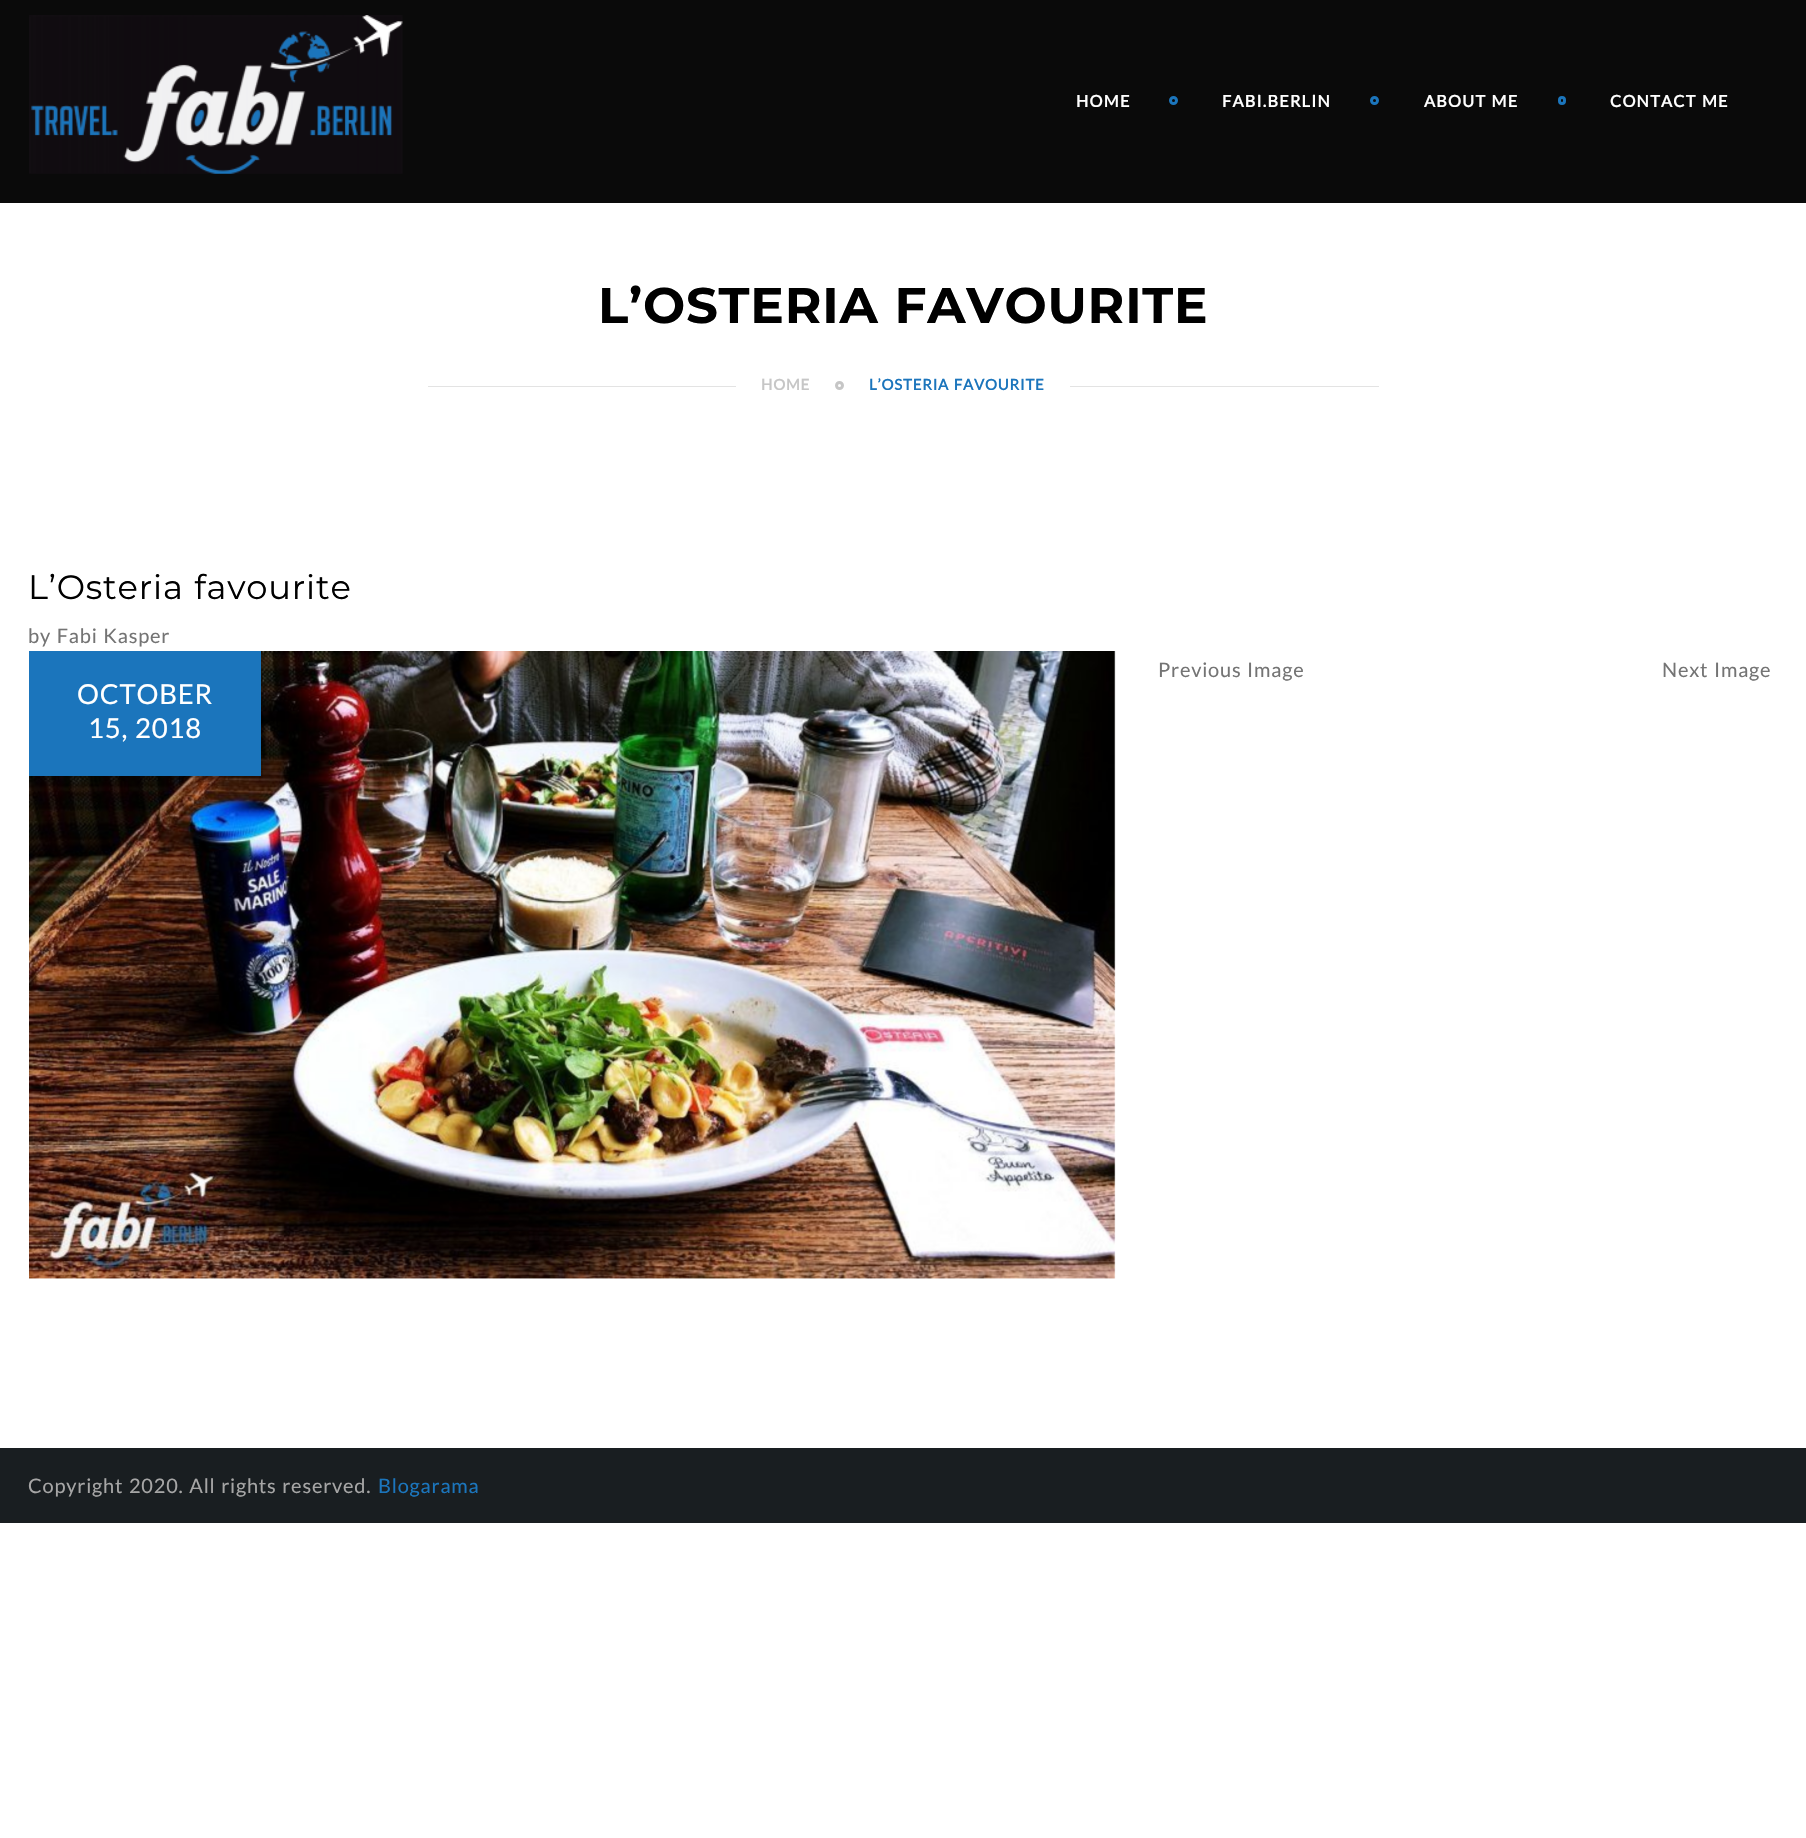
void draw(SkCanvas* c) {
SkPaint p;
p.setAntiAlias(true);
auto F=[&](const char* family, int weight, float size, bool italic = false){SkFontStyle style(weight, SkFontStyle::kNormal_Width,italic ? SkFontStyle::kItalic_Slant : SkFontStyle::kUpright_Slant);SkFont result(fontMgr->matchFamilyStyle(family, style), size);result.setSubpixel(true);return result;};
auto L=[&](const char* s, float x, float y, const SkFont& font, const SkPaint& ink, float letter, float word){std::vector<SkGlyphID> glyphs(font.countText(s, strlen(s), SkTextEncoding::kUTF8));std::vector<float> xs(glyphs.size());font.textToGlyphs(s, strlen(s), SkTextEncoding::kUTF8, glyphs);font.getXPos(glyphs, xs, x);float extra = 0;for (size_t i = 0; i < glyphs.size(); i++) {xs[i] += extra;extra += letter + word * (glyphs[i] == font.unicharToGlyph(' '));}c->drawTextBlob(SkTextBlob::MakeFromPosHGlyphs(glyphs, xs, y, font), 0, 0, ink);};
auto R=[&](float x, float y, float w, float h){c->drawRect(SkRect::MakeXYWH(x, y, w, h), p);};
auto I=[&](const char* path, float x, float y, float w, float h){auto image = SkImages::DeferredFromEncodedData(SkData::MakeFromFileName(path));c->drawImageRect(image, SkRect::MakeXYWH(x, y, w, h), SkSamplingOptions());};
auto P=[&](const char* data, bool evenOdd = false){SkPath result = *SkParsePath::FromSVGString(data);if (evenOdd) result.setFillType(SkPathFillType::kEvenOdd);return result;};
c->clear(0xffffffff);
p.setColor(0xff0a0a0a);
R(0,0,1806,203);
I("1.png",29,15,374,159);
auto f1 = F("Lato",700,16.25);
p.setColor(0xffffffff);
L("HOME",1076,107,f1,p,1.25,0);
p.setStroke(true);
p.setStrokeWidth(3);
p.setColor(0xff1b75bc);
c->drawCircle(1173.5,100.5,3,p);
p.setStroke(false);
p.setColor(0xffffffff);
L("FABI.BERLIN",1222,107,f1,p,1.25,0);
p.setStroke(true);
p.setColor(0xff1b75bc);
c->drawCircle(1374.5,100.5,3,p);
p.setStroke(false);
p.setColor(0xffffffff);
L("ABOUT ME",1424,107,f1,p,1.25,1);
p.setStroke(true);
p.setColor(0xff1b75bc);
c->drawRoundRect(SkRect::MakeXYWH(1559.5,97.5,5,6),2.5,2.5,p);
p.setStroke(false);
p.setColor(0xffffffff);
L("CONTACT ME",1610,107,f1,p,1.25,1);
auto f2 = F("Montserrat",700,50);
p.setColor(0xff000000);
L("L’OSTERIA FAVOURITE",598,323,f2,p,.8,1);
p.setColor(0xffe3e3e3);
R(428,386,308,1);
auto f3 = F("Lato",700,15);
p.setColor(0xffc6c6c6);
L("HOME",761,390,f3,p,.8,0);
p.setStroke(true);
c->drawCircle(839.5,385.5,3,p);
p.setStroke(false);
p.setColor(0xff1b75bc);
L("L’OSTERIA FAVOURITE",869,390,f3,p,.8,1);
p.setColor(0xffe3e3e3);
R(1070,386,309,1);
auto f4 = F("Montserrat",400,33.75);
p.setColor(0xff000000);
L("L’Osteria favourite",28,599,f4,p,.8,1);
auto f5 = F("Lato",400,20);
p.setColor(0xff747474);
L("by Fabi Kasper",28,643,f5,p,.8,1);
I("2.png",29,651,1087,628);
p.setColor(0x26000000);
c->drawPath(P("M30 776v2h233v-125h-2v123z"),p);
p.setColor(0xff1b75bc);
R(29,651,232,125);
auto f6 = F("Lato",400,27.5);
p.setColor(0xffffffff);
L("OCTOBER",77,704,f6,p,.8,0);
L("15,",88,738,f6,p,.8,0);
L("2018",135,738,f6,p,.8,0);
p.setColor(0xff747474);
L("Previous Image",1158,677,f5,p,.8,1);
L("Next Image",1662,677,f5,p,.8,1);
p.setColor(0xff191e21);
R(0,1448,1806,75);
p.setColor(0xffa6a6a6);
L("Copyright 2020. All rights reserved.",28,1493,f5,p,.8,1);
p.setColor(0xff1b75bc);
L("Blogarama",378,1493,f5,p,.8,0);
}
